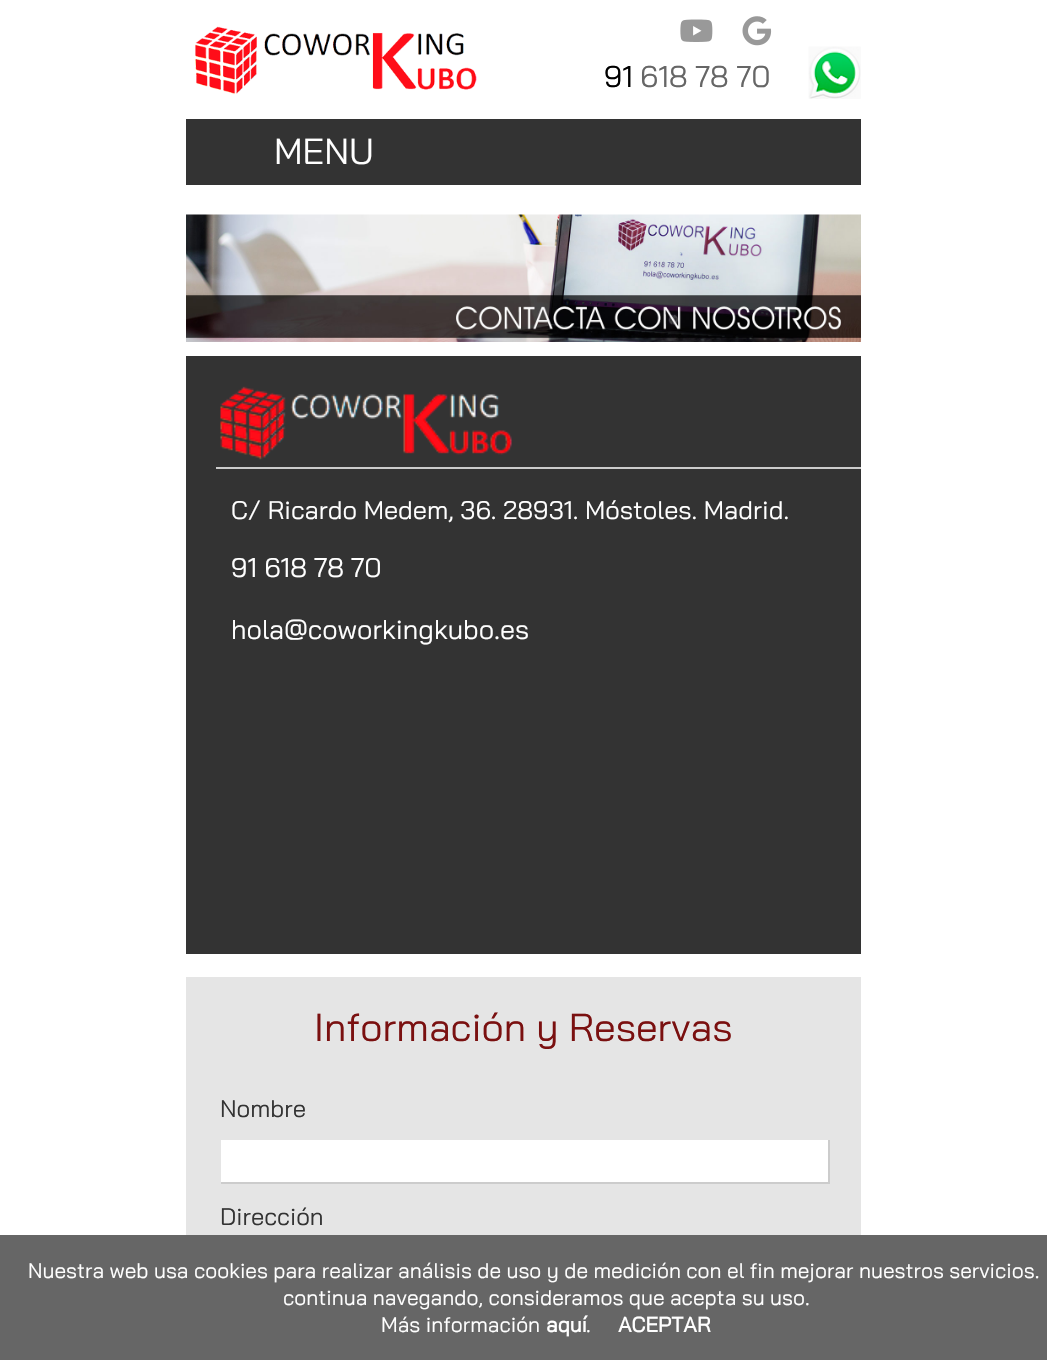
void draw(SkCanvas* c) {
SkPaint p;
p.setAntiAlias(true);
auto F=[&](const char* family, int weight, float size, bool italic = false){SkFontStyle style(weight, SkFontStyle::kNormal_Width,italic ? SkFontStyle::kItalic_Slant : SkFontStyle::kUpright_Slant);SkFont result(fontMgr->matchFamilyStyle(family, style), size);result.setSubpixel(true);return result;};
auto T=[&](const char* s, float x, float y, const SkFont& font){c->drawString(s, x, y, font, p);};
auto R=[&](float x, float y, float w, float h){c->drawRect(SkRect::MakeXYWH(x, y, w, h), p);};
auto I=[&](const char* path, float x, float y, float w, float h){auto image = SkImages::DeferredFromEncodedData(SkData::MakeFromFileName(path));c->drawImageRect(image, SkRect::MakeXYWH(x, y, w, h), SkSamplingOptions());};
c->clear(0xffffffff);
I("1.png",195,26,282,69);
I("2.png",680,19,33,23);
I("3.png",742,16,30,30);
auto f1 = F("Bai Jamjuree",400,30);
p.setColor(0xff000000);
T("91",604,87,f1);
p.setColor(0xff666666);
T("618 78 70",640,87,f1);
I("4.png",808,46,53,53);
p.setColor(0xff333333);
R(186,119,675,66);
auto f2 = F("Bai Jamjuree",400,36);
p.setColor(0xffffffff);
T("MENU",274,164,f2);
I("5.png",186,214,675,128);
p.setColor(0xff333333);
R(186,356,675,598);
p.setColor(0xffcccccc);
R(216,467,645,2);
I("6.png",220,386,292,74);
auto f3 = F("Bai Jamjuree",400,25.5);
p.setColor(0xffffffff);
T("C/ Ricardo Medem, 36. 28931. Móstoles. Madrid.",231,519,f3);
auto f4 = F("Bai Jamjuree",400,27);
T("91 618 78 70",231,577,f4);
T("hola@coworkingkubo.es",231,639,f4);
p.setColor(0xffe5e5e5);
R(186,977,675,258);
auto f5 = F("Bai Jamjuree",400,39);
p.setColor(0xff7a1010);
T("Información y Reservas",314,1041,f5);
auto f6 = F("Bai Jamjuree",400,24);
p.setColor(0xff333333);
T("Nombre",220,1117,f6);
p.setColor(0xffffffff);
R(221,1140,607,42);
p.setColor(0xffcccccc);
R(828,1140,2,44);
R(221,1182,609,2);
p.setColor(0xff333333);
T("Dirección",220,1225,f6);
p.setColor(0xff666666);
R(0,1235,1047,125);
auto f7 = F("Bai Jamjuree",400,21);
p.setColor(0xffffffff);
T("Nuestra web usa cookies para realizar análisis de uso y de medición con el fin mejorar nuestros servicios.",28,1278,f7);
T("continua navegando, consideramos que acepta su uso.",283,1305,f7);
T("Más información",381,1332,f7);
auto f8 = F("Bai Jamjuree",700,21);
T("aquí",546,1332,f8);
T(".",586,1332,f7);
T("ACEPTAR",618,1332,f8);
}
